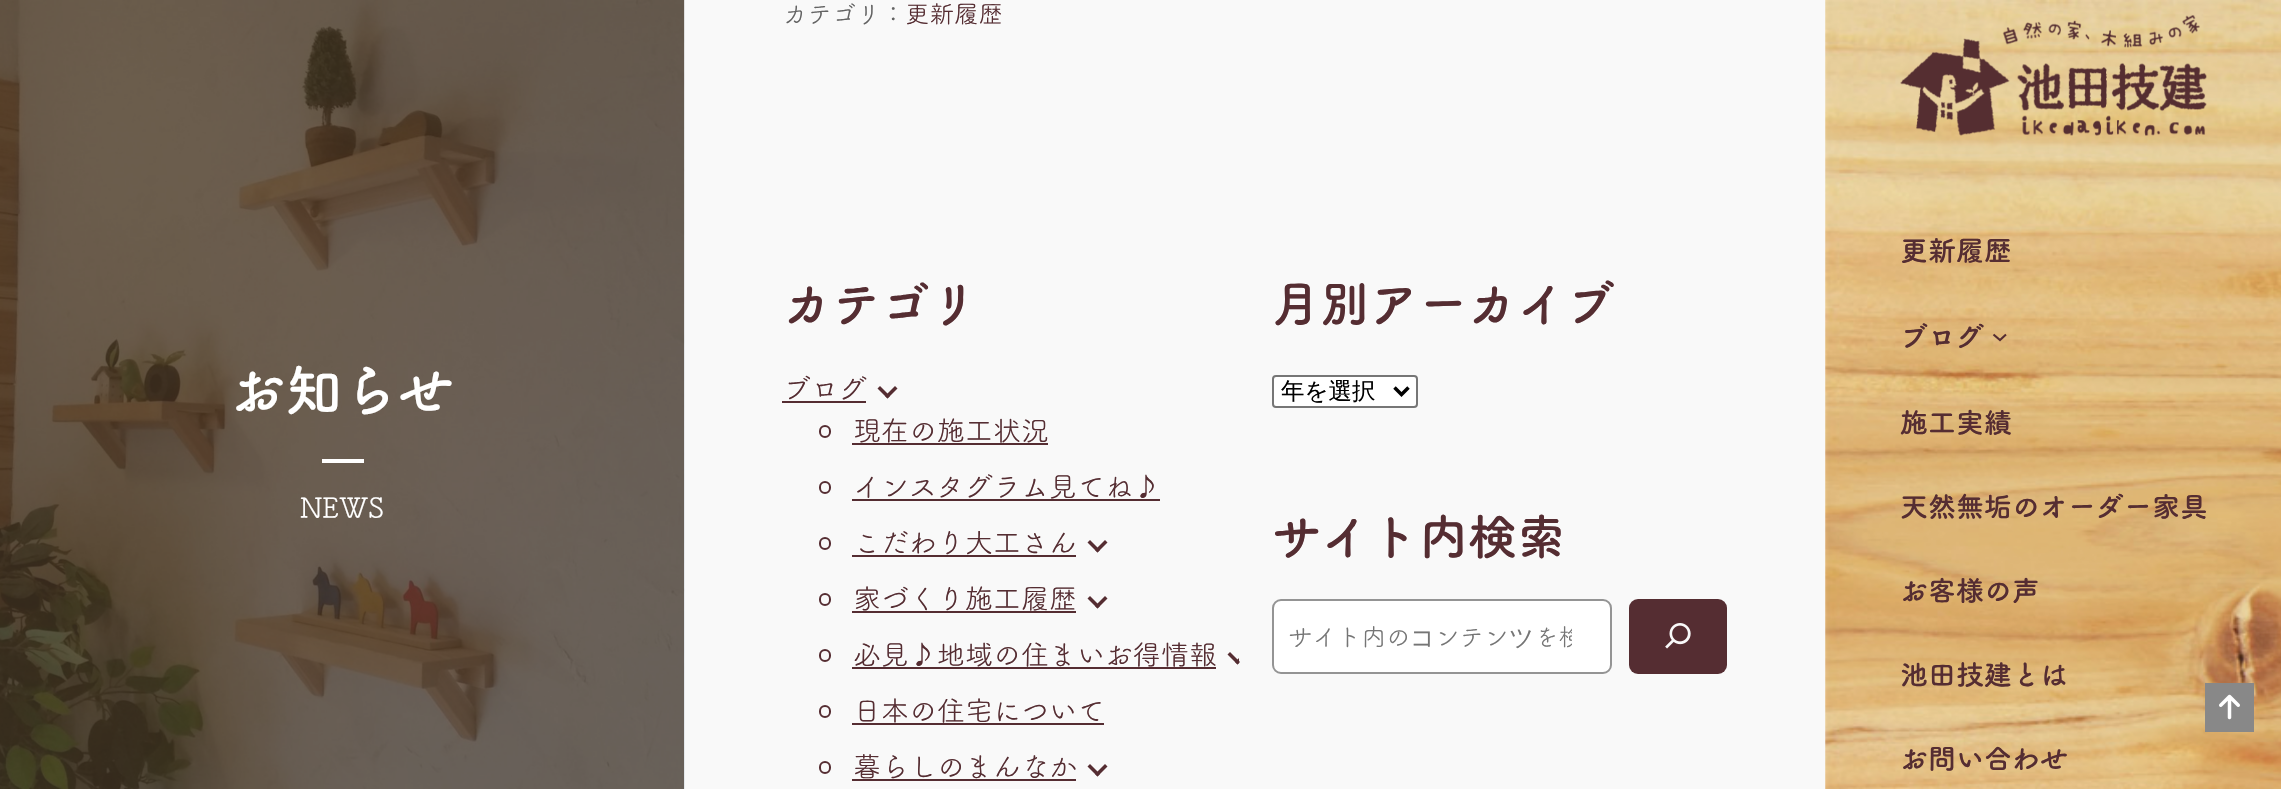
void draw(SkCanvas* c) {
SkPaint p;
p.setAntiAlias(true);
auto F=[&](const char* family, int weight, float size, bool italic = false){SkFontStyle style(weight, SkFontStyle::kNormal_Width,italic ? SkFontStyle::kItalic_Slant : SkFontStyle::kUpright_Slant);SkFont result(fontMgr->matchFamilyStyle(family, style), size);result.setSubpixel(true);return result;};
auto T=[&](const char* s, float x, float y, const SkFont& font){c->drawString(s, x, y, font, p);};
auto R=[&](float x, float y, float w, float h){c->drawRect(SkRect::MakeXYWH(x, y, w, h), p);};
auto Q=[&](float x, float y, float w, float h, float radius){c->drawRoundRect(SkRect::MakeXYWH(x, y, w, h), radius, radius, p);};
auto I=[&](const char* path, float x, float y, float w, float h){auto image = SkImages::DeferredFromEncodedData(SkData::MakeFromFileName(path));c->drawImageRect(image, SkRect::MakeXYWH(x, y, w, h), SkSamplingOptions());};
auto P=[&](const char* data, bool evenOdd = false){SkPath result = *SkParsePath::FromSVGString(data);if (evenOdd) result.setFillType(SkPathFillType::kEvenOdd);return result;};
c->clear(0xfff9f9f9);
I("1.png",0,0,685,789);
auto f1 = F("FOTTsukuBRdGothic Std",700,56);
p.setColor(0xffffffff);
T("お知らせ",230,411,f1);
R(322,459,42,4);
auto f2 = F("FOTTsukuBRdGothic Std",400,28);
T("NEWS",300,518,f2);
auto f3 = F("FOTTsukuBRdGothic Std",400,24.5);
p.setColor(0xff636363);
T("カテゴリ：",783,23,f3);
p.setColor(0xff552d32);
T("更新履歴",905,23,f3);
auto f4 = F("FOTTsukuBRdGothic Std",700,49);
T("カテゴリ",783,322,f4);
T("ブログ",783,399,f2);
R(782,401,84,2);
c->drawPath(P("M895 386l2.5 2.5l-10 10l-2.5-2.5z"),p);
c->drawPath(P("M880 386l10 10l-2.5 2.5l-10-10z"),p);
p.setStroke(true);
p.setStrokeWidth(2);
c->drawRoundRect(SkRect::MakeXYWH(820,426,10,11),5,5,p);
p.setStroke(false);
T("現在の施工状況",853,441,f2);
R(852,443,196,2);
p.setStroke(true);
c->drawRoundRect(SkRect::MakeXYWH(820,482,10,11),5,5,p);
p.setStroke(false);
T("インスタグラム見てね♪",853,497,f2);
R(852,499,308,2);
p.setStroke(true);
c->drawRoundRect(SkRect::MakeXYWH(820,538,10,11),5,5,p);
p.setStroke(false);
T("こだわり大工さん",853,553,f2);
R(852,555,224,2);
c->drawPath(P("M1105 540l2.5 2.5l-10 10l-2.5-2.5z"),p);
c->drawPath(P("M1090 540l10 10l-2.5 2.5l-10-10z"),p);
p.setStroke(true);
c->drawRoundRect(SkRect::MakeXYWH(820,594,10,11),5,5,p);
p.setStroke(false);
T("家づくり施工履歴",853,609,f2);
R(852,611,224,2);
c->drawPath(P("M1105 596l2.5 2.5l-10 10l-2.5-2.5z"),p);
c->drawPath(P("M1090 596l10 10l-2.5 2.5l-10-10z"),p);
p.setStroke(true);
c->drawRoundRect(SkRect::MakeXYWH(820,650,10,11),5,5,p);
p.setStroke(false);
T("必見♪地域の住まいお得情報",853,665,f2);
R(852,667,364,2);
c->save();
c->clipRect(SkRect::MakeXYWH(782,408,457,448));
c->drawPath(P("M1245 652l2.5 2.5l-10 10l-2.5-2.5z"),p);
c->restore();
c->drawPath(P("M1230 652l10 10l-2.5 2.5l-10-10z"),p);
p.setStroke(true);
c->drawRoundRect(SkRect::MakeXYWH(820,706,10,11),5,5,p);
p.setStroke(false);
T("日本の住宅について",853,721,f2);
R(852,723,252,2);
p.setStroke(true);
c->drawRoundRect(SkRect::MakeXYWH(820,762,10,11),5,5,p);
p.setStroke(false);
T("暮らしのまんなか",853,777,f2);
R(852,779,224,2);
c->drawPath(P("M1105 764l2.5 2.5l-10 10l-2.5-2.5z"),p);
c->drawPath(P("M1090 764l10 10l-2.5 2.5l-10-10z"),p);
T("月別アーカイブ",1272,322,f4);
p.setColor(0xffffffff);
c->drawRoundRect(SkRect::MakeXYWH(1273,376,144,31),3,3,p);
p.setStroke(true);
p.setColor(0xff767676);
c->drawRoundRect(SkRect::MakeXYWH(1273,376,144,31),3,3,p);
p.setStrokeWidth(3.5);
p.setColor(0xff000000);
c->drawPath(P("M1394.5 387.5l7 7l7-7"),p);
auto f5 = F("WenQuanYi Zen Hei",500,23.5);
p.setStroke(false);
T("年を選択",1281,399,f5);
p.setColor(0xff552d32);
T("サイト内検索",1272,555,f4);
p.setColor(0xffffffff);
c->drawRoundRect(SkRect::MakeXYWH(1273,600,338,73),8,8,p);
p.setStroke(true);
p.setStrokeWidth(2);
p.setColor(0xff949494);
c->drawRoundRect(SkRect::MakeXYWH(1273,600,338,73),8,8,p);
p.setStroke(false);
p.setColor(0xff757575);
T("サイト内の",1288,646,f3);
auto f6 = F("WenQuanYi Zen Hei",500,24.5);
T("コ",1410,646,f6);
T("ンテン",1435,646,f3);
T("ツ",1509,646,f6);
c->save();
c->clipRect(SkRect::MakeXYWH(1288,618,284,37));
T("を検",1534,646,f3);
c->restore();
p.setColor(0xff552d32);
Q(1629,599,98,75,9);
I("2.png",1665,623,26,26);
I("3.png",1825,0,456,789);
I("4.png",1900,15,307,121);
auto f7 = F("FOTTsukuBRdGothic Std",700,28);
T("更新履歴",1900,261,f7);
T("ブログ",1900,347,f7);
p.setStroke(true);
p.setStrokeWidth(2.1);
c->drawPath(P("M1993.5 334.5l6.5 5.5l6-5.5"),p);
p.setStroke(false);
T("施工実績",1900,433,f7);
T("天然無垢のオーダー家具",1900,517,f7);
T("お客様の声",1900,601,f7);
T("池田技建とは",1900,685,f7);
T("お問い合わせ",1900,769,f7);
p.setColor(0xff888888);
R(2205,683,49,49);
I("5.png",2219,694,21,26);
}
